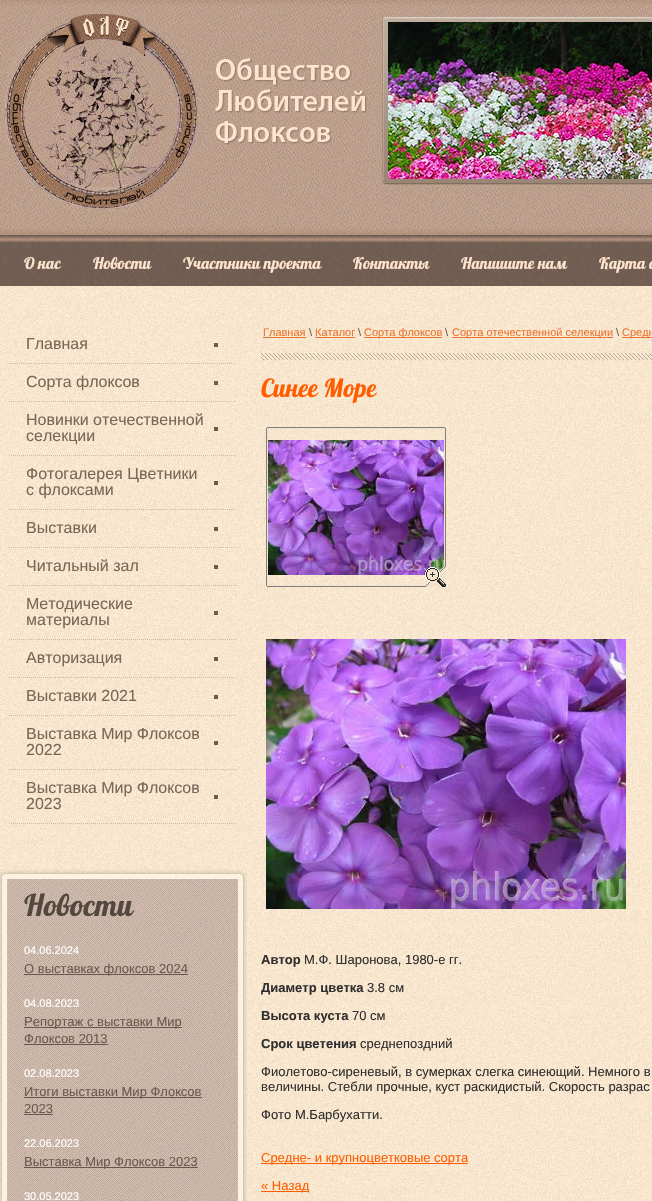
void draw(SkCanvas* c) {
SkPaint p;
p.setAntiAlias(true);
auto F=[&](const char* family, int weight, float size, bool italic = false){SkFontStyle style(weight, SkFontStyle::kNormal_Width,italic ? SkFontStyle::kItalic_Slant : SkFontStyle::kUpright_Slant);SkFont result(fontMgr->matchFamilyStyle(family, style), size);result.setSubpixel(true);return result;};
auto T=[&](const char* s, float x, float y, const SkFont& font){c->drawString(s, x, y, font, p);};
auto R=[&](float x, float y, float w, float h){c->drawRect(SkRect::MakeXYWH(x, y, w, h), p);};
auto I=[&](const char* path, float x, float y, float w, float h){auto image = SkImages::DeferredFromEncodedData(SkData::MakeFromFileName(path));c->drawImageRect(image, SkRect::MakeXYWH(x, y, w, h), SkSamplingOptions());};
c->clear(0xffffffff);
I("1.png",0,286,652,915);
I("2.png",0,0,652,286);
I("3.png",5,13,194,199);
I("4.png",215,58,152,87);
I("5.png",382,17,270,168);
I("6.png",388,22,264,157);
auto f1 = F("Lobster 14",400,16);
p.setColor(0xfffee3ce);
T("О нас",24,269,f1);
T("Новости",93,269,f1);
T("Участники проекта",183,269,f1);
T("Контакты",353,269,f1);
T("Напишите нам",461,269,f1);
T("Карта с",599,269,f1);
I("7.png",9,363,227,1);
p.setColor(0xff6e5b4f);
R(214,343,4,4);
auto f2 = F("Liberation Sans",400,16);
p.setColor(0xff7b6658);
T("Главная",26,349,f2);
I("8.png",9,401,227,1);
p.setColor(0xff6e5b4f);
R(214,381,4,4);
p.setColor(0xff7b6658);
T("Сорта флоксов",26,387,f2);
I("9.png",9,455,227,1);
p.setColor(0xff6e5b4f);
R(214,427,4,4);
p.setColor(0xff7b6658);
T("Новинки отечественной",26,425,f2);
T("селекции",26,441,f2);
I("10.png",9,509,227,1);
p.setColor(0xff6e5b4f);
R(214,481,4,4);
p.setColor(0xff7b6658);
T("Фотогалерея Цветники",26,479,f2);
T("с флоксами",26,495,f2);
I("11.png",9,547,227,1);
p.setColor(0xff6e5b4f);
R(214,527,4,4);
p.setColor(0xff7b6658);
T("Выставки",26,533,f2);
I("12.png",9,585,227,1);
p.setColor(0xff6e5b4f);
R(214,565,4,4);
p.setColor(0xff7b6658);
T("Читальный зал",26,571,f2);
I("13.png",9,639,227,1);
p.setColor(0xff6e5b4f);
R(214,611,4,4);
p.setColor(0xff7b6658);
T("Методические",26,609,f2);
T("материалы",26,625,f2);
I("14.png",9,677,227,1);
p.setColor(0xff6e5b4f);
R(214,657,4,4);
p.setColor(0xff7b6658);
T("Авторизация",26,663,f2);
I("15.png",9,715,227,1);
p.setColor(0xff6e5b4f);
R(214,695,4,4);
p.setColor(0xff7b6658);
T("Выставки 2021",26,701,f2);
I("16.png",9,769,227,1);
p.setColor(0xff6e5b4f);
R(214,741,4,4);
p.setColor(0xff7b6658);
T("Выставка Мир Флоксов",26,739,f2);
T("2022",26,755,f2);
I("17.png",9,823,227,1);
p.setColor(0xff6e5b4f);
R(214,795,4,4);
p.setColor(0xff7b6658);
T("Выставка Мир Флоксов",26,793,f2);
T("2023",26,809,f2);
I("18.png",0,879,247,322);
I("19.png",0,869,247,10);
auto f3 = F("Lobster 14",400,30);
p.setColor(0xff54473d);
T("Новости",24,916,f3);
auto f4 = F("Liberation Sans",400,11);
p.setColor(0xffffffff);
T("04.06.2024",24,954,f4);
p.setColor(0xff6a574b);
R(24,974,164,1);
auto f5 = F("Liberation Sans",400,13);
p.setColor(0xff6d5a4d);
T("О выставках флоксов 2024",24,973,f5);
p.setColor(0xffffffff);
T("04.08.2023",24,1007,f4);
p.setColor(0xff6a574b);
R(24,1027,158,1);
p.setColor(0xff6d5a4d);
T("Репортаж с выставки Мир",24,1026,f5);
T("Флоксов 2013",24,1043,f5);
p.setColor(0xff6a574b);
R(24,1044,84,1);
p.setColor(0xffffffff);
T("02.08.2023",24,1077,f4);
p.setColor(0xff6a574b);
R(24,1097,178,1);
p.setColor(0xff6d5a4d);
T("Итоги выставки Мир Флоксов",24,1096,f5);
T("2023",24,1113,f5);
p.setColor(0xff6a574b);
R(24,1114,29,1);
p.setColor(0xffffffff);
T("22.06.2023",24,1147,f4);
p.setColor(0xff6a574b);
R(24,1167,174,1);
p.setColor(0xff6d5a4d);
T("Выставка Мир Флоксов 2023",24,1166,f5);
p.setColor(0xffffffff);
T("30.05.2023",24,1200,f4);
I("20.png",261,353,391,7);
p.setColor(0xffea7532);
T("Главная",263,336,f4);
R(263,337,43,1);
p.setColor(0xff6d5a4d);
T("\\",309,336,f4);
p.setColor(0xffea7532);
T("Каталог",315,336,f4);
R(315,337,40,1);
p.setColor(0xff6d5a4d);
T("\\",358,336,f4);
p.setColor(0xffea7532);
R(364,337,78,1);
T("Сорта флоксов",364,336,f4);
p.setColor(0xff6d5a4d);
T("\\",445,336,f4);
p.setColor(0xffea7532);
R(452,337,161,1);
T("Сорта отечественной селекции",452,336,f4);
p.setColor(0xff6d5a4d);
T("\\",616,336,f4);
p.setColor(0xffea7532);
R(622,337,30,1);
T("Средн",622,336,f4);
auto f6 = F("Lobster 14",400,25);
p.setColor(0xffff5d00);
T("Синее Море",261,397,f6);
I("21.png",266,427,180,160);
I("22.png",266,639,360,270);
auto f7 = F("Liberation Sans",700,13);
p.setColor(0xff2f2f2f);
T("Автор",261,964,f7);
T("М.Ф. Шаронова, 1980-е гг.",304,964,f5);
T("Диаметр цветка",261,992,f7);
T("3.8 см",367,992,f5);
T("Высота куста",261,1020,f7);
T("70 см",352,1020,f5);
T("Срок цветения",261,1048,f7);
T("среднепоздний",360,1048,f5);
T("Фиолетово-сиреневый, в сумерках слегка синеющий. Немного в",261,1076,f5);
T("величины. Стебли прочные, куст раскидистый. Скорость разрас",261,1091,f5);
T("Фото М.Барбухатти.",261,1119,f5);
p.setColor(0xffff5d00);
R(261,1163,207,1);
T("Средне- и крупноцветковые сорта",261,1162,f5);
R(261,1191,48,1);
T("« Назад",261,1190,f5);
}
